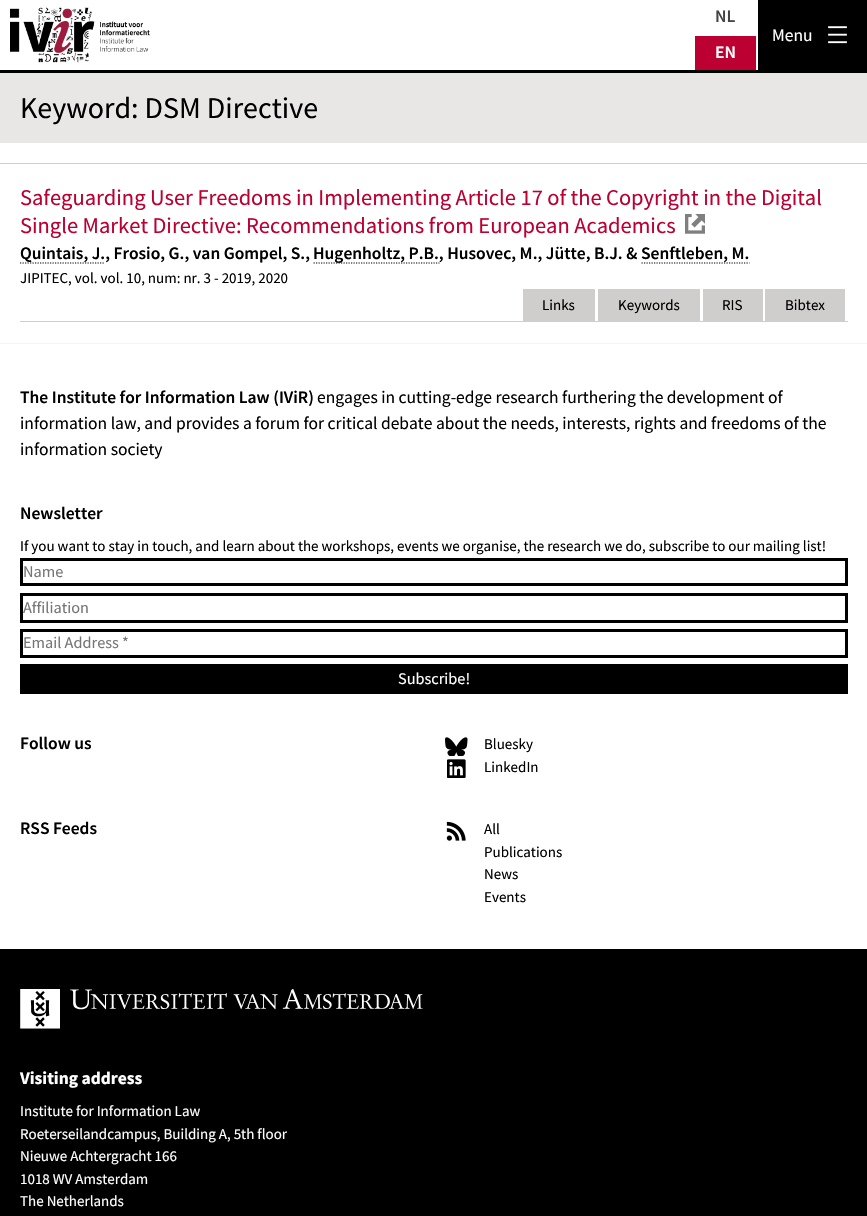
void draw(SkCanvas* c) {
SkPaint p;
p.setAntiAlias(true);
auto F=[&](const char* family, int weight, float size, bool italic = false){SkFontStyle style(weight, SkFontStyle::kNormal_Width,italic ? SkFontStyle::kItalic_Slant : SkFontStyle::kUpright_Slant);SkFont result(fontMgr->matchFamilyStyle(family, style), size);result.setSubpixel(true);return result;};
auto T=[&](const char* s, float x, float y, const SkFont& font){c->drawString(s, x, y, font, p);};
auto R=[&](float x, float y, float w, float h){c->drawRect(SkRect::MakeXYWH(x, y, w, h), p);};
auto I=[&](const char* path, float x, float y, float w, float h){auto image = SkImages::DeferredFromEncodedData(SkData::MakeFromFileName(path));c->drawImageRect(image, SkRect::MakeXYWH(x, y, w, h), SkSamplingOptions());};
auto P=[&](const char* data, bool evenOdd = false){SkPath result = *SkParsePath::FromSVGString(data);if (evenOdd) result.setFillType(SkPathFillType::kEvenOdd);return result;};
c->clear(0xffffffff);
I("1.png",10,7,140,56);
auto f1 = F("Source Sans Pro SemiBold",600,17.5);
p.setColor(0xff444444);
T("NL",715,22,f1);
p.setColor(0xffbc0031);
R(695,36,61,34);
p.setColor(0xffffffff);
T("EN",715,58,f1);
p.setColor(0xff000000);
R(0,70,867,3);
R(758,0,109,70);
auto f2 = F("Source Sans Pro",400,17.5);
p.setColor(0xffffffff);
T("Menu",772,41,f2);
I("2.png",828,26,19,18);
p.setColor(0xffe9e6e6);
R(0,73,867,70);
auto f3 = F("Source Sans Pro",400,30);
p.setColor(0xff000000);
T("Keyword: DSM Directive",20,118,f3);
p.setColor(0xffd0cdcd);
R(0,163,867,1);
auto f4 = F("Source Sans Pro",400,22.5);
p.setColor(0xffbc0031);
T("Safeguarding User Freedoms in Implementing Article 17 of the Copyright in the Digital",20,205,f4);
T("Single Market Directive: Recommendations from European Academics",20,233,f4);
I("3.png",685,214,20,20);
p.setStroke(true);
p.setStrokeWidth(1.2);
p.setColor(0xff000000);
p.setPathEffect(SkDashPathEffect::Make({{1.25f,1.25f}}, 0));
c->drawPath(P("M20 263h85"),p);
p.setPathEffect(nullptr);
p.setStroke(false);
T("Quintais, J., Frosio, G., van Gompel, S.,",20,259,f1);
p.setStroke(true);
p.setPathEffect(SkDashPathEffect::Make({{1.25f,1.25f}}, 0));
c->drawPath(P("M313.5 263h126"),p);
p.setPathEffect(nullptr);
p.setStroke(false);
T("Hugenholtz, P.B., Husovec, M., Jütte, B.J. &",313,259,f1);
p.setStroke(true);
p.setPathEffect(SkDashPathEffect::Make({{1.25f,1.25f}}, 0));
c->drawPath(P("M641.5 263h108"),p);
p.setPathEffect(nullptr);
p.setStroke(false);
T("Senftleben, M.",641,259,f1);
auto f5 = F("Source Sans Pro",400,15);
T("JIPITEC, vol. vol. 10, num: nr. 3 - 2019, 2020",20,283,f5);
p.setColor(0xffd0cdcd);
R(20,321,828,1);
R(523,289,72,32);
p.setColor(0xff000000);
T("Links",542,310,f5);
p.setColor(0xffd0cdcd);
R(598,289,102,32);
p.setColor(0xff000000);
T("Keywords",618,310,f5);
p.setColor(0xffd0cdcd);
R(703,289,60,32);
p.setColor(0xff000000);
T("RIS",722,310,f5);
p.setColor(0xffd0cdcd);
R(765,289,80,32);
p.setColor(0xff000000);
T("Bibtex",785,310,f5);
p.setColor(0xfff5f4f4);
R(0,343,867,1);
p.setColor(0xff000000);
T("The Institute for Information Law (IViR)",20,403,f1);
T("engages in cutting-edge research furthering the development of",317,403,f2);
T("information law, and provides a forum for critical debate about the needs, interests, rights and freedoms of the",20,429,f2);
T("information society",20,455,f2);
T("Newsletter",20,519,f1);
T("If you want to stay in touch, and learn about the workshops, events we organise, the research we do, subscribe to our mailing list!",20,551,f5);
p.setStroke(true);
p.setStrokeWidth(3);
c->drawRect(SkRect::MakeXYWH(21.5,559.5,825,25),p);
auto f6 = F("Source Sans Pro",400,16.25);
p.setStroke(false);
p.setColor(0xff757575);
T("Name",23,577,f6);
p.setStroke(true);
p.setColor(0xff000000);
c->drawRect(SkRect::MakeXYWH(21.5,594.5,825,27),p);
p.setStroke(false);
p.setColor(0xff757575);
T("Affiliation",23,613,f6);
p.setStroke(true);
p.setColor(0xff000000);
c->drawRect(SkRect::MakeXYWH(21.5,630.5,825,26),p);
p.setStroke(false);
p.setColor(0xff757575);
T("Email Address *",23,648,f6);
p.setColor(0xff000000);
R(20,664,828,30);
p.setColor(0xffffffff);
T("Subscribe!",398,684,f6);
p.setColor(0xff000000);
T("Follow us",20,749,f1);
I("4.png",445,737,23,19);
T("Bluesky",484,749,f5);
I("5.png",447,759,19,19);
T("LinkedIn",484,772,f5);
T("RSS Feeds",20,834,f1);
I("6.png",446,821,20,20);
T("All",484,834,f5);
T("Publications",484,857,f5);
T("News",484,879,f5);
T("Events",484,902,f5);
R(0,949,867,267);
I("7.png",20,989,403,40);
auto f7 = F("Source Sans Pro",700,17.5);
p.setColor(0xffffffff);
T("Visiting address",20,1084,f7);
T("Institute for Information Law",20,1116,f5);
T("Roeterseilandcampus, Building A, 5th floor",20,1139,f5);
T("Nieuwe Achtergracht 166",20,1161,f5);
T("1018 WV Amsterdam",20,1184,f5);
T("The Netherlands",20,1206,f5);
}
